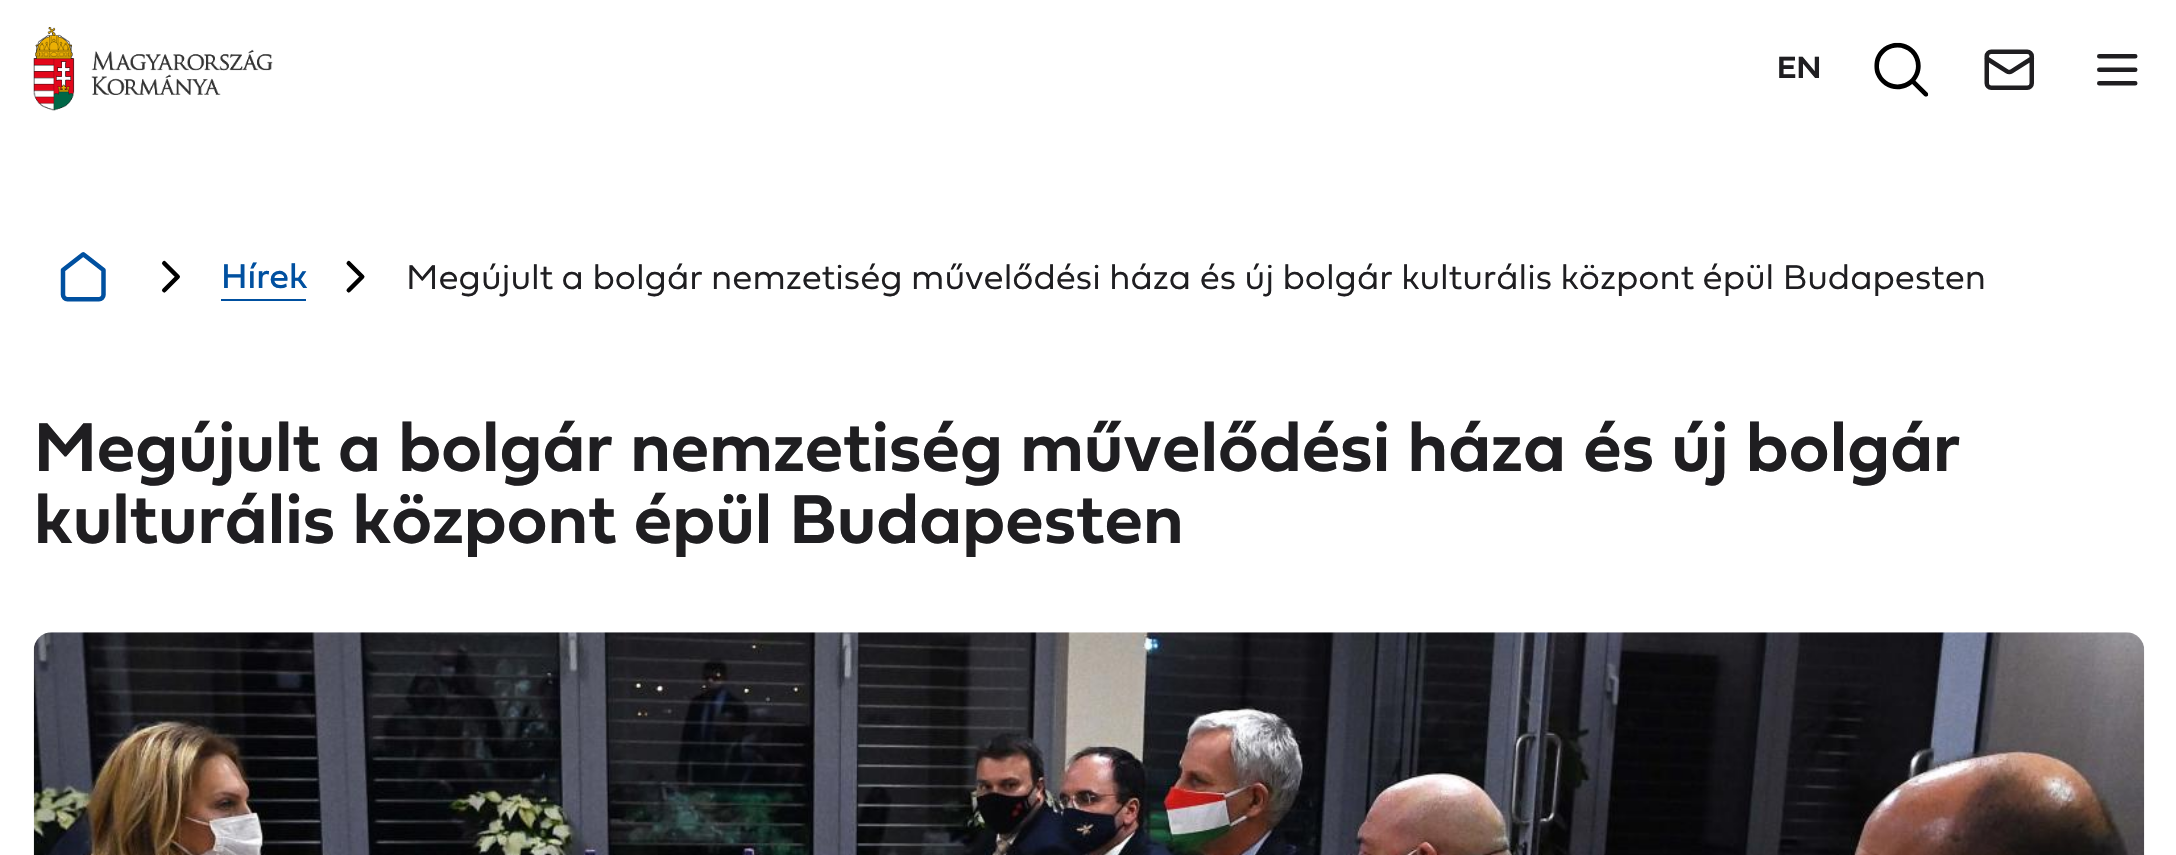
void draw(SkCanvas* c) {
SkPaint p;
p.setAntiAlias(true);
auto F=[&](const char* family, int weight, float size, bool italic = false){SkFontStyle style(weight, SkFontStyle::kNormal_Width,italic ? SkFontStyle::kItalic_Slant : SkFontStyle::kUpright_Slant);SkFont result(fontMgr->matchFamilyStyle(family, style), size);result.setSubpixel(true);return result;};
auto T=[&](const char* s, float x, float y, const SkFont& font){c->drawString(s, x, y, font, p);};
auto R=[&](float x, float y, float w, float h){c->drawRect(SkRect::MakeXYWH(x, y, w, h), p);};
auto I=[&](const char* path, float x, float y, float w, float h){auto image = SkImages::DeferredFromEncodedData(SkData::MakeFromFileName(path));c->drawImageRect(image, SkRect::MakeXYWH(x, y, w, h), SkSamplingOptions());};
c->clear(0xffffffff);
I("1.png",33,27,240,84);
auto f1 = F("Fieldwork",600,32);
p.setColor(0xff1f1e21);
T("EN",1777,78,f1);
I("2.png",1874,42,55,55);
I("3.png",1984,49,51,41);
I("4.png",2097,54,41,32);
I("5.png",60,252,46,50);
I("6.png",161,260,19,33);
auto f2 = F("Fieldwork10",400,36);
p.setColor(0xff0050a0);
T("Hírek",221,288,f2);
R(221,299,85,2);
I("7.png",346,260,19,33);
auto f3 = F("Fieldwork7",300,36);
p.setColor(0xff1f1e21);
T("Megújult a bolgár nemzetiség művelődési háza és új bolgár kulturális központ épül Budapesten",406,289,f3);
auto f4 = F("Fieldwork",600,72);
T("Megújult a bolgár nemzetiség művelődési háza és új bolgár",34,471,f4);
T("kulturális központ épül Budapesten",34,543,f4);
I("8.png",33,632,2112,223);
}
